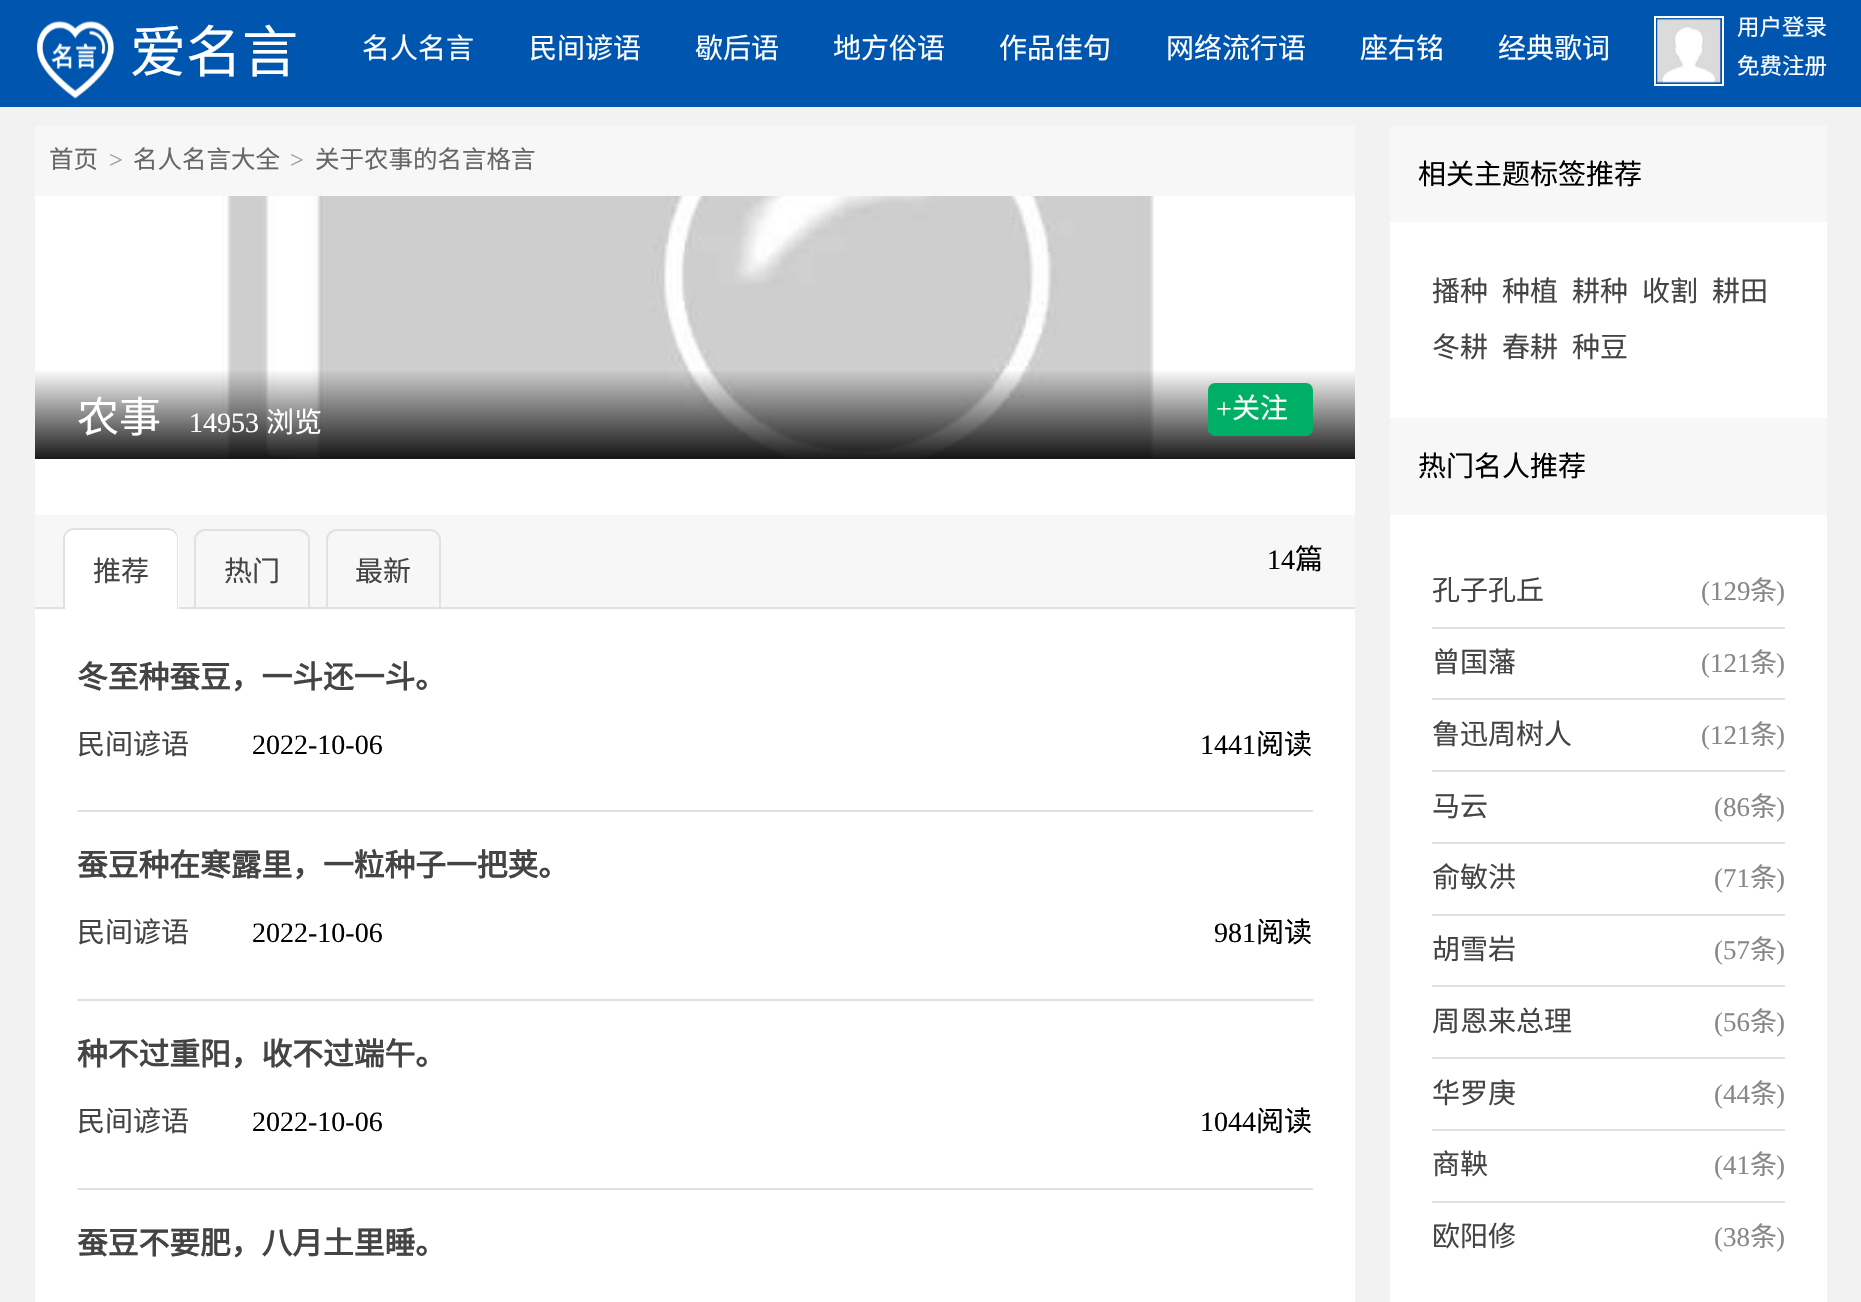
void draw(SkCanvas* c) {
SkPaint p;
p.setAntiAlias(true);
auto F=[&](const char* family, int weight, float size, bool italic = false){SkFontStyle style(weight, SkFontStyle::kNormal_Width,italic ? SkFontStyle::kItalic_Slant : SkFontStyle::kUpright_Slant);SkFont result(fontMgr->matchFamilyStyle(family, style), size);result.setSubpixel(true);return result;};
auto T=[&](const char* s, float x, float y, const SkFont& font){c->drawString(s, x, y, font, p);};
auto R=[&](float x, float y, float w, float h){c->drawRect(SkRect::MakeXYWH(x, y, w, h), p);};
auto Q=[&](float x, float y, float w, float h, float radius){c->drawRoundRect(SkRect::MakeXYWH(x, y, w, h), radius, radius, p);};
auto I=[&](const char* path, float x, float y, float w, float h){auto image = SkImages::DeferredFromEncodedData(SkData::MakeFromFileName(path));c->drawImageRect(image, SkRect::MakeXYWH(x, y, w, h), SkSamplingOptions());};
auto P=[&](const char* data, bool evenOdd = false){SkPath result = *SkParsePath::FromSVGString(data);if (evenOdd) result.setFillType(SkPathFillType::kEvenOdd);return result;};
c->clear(0xfff2f2f2);
p.setColor(0xff0056af);
R(0,0,1861,107);
I("1.png",37,21,77,78);
auto f1 = F("Noto Sans CJK SC",400,56);
p.setColor(0xffffffff);
T("爱名言",130,72,f1);
auto f2 = F("Noto Sans CJK SC",400,28);
T("名人名言",362,58,f2);
T("民间谚语",529,58,f2);
T("歇后语",695,58,f2);
T("地方俗语",833,58,f2);
T("作品佳句",999,58,f2);
T("网络流行语",1166,58,f2);
T("座右铭",1360,58,f2);
T("经典歌词",1498,58,f2);
p.setStroke(true);
p.setStrokeWidth(2);
c->drawRect(SkRect::MakeXYWH(1655,17,68,68),p);
I("2.png",1657,18,64,65);
auto f3 = F("Noto Sans CJK SC",400,22.5);
p.setStroke(false);
T("用户登录",1737,35,f3);
T("免费注册",1737,74,f3);
R(35,196,1320,1106);
p.setColor(0xfff7f7f7);
R(35,126,1320,70);
auto f4 = F("Noto Sans CJK SC",400,24.5);
p.setColor(0xff666666);
T("首页",49,168,f4);
auto f5 = F("Liberation Serif",400,24.5);
p.setColor(0xff999999);
T(">",109,168,f5);
p.setColor(0xff666666);
T("名人名言大全",133,168,f4);
p.setColor(0xff999999);
T(">",290,168,f5);
p.setColor(0xff666666);
T("关于农事的名言格言",315,168,f4);
I("3.png",222,196,932,263);
{
const SkColor colors[] = {0x00000000,0xe6000000};
const float stops[] = {0,1};
const SkPoint ends[] = {{695,369}, {695,459}};
p.setShader(SkGradientShader::MakeLinear(ends, colors, stops, 2, SkTileMode::kClamp));
p.setAlpha(255);
}
R(35,371,1320,88);
auto f6 = F("Noto Sans CJK SC",400,42);
p.setShader(nullptr);
p.setColor(0xffffffff);
T("农事",77,432,f6);
auto f7 = F("Liberation Serif",400,28);
T("14953",189,432,f7);
T("浏览",266,432,f2);
p.setColor(0xff00af66);
Q(1208,383,105,53,7);
p.setColor(0xffffffff);
T("+",1216,418,f7);
T("关注",1232,418,f2);
p.setColor(0xfff7f7f7);
R(35,515,1320,92);
p.setColor(0xffdee2e6);
R(35,607,1320,2);
p.setColor(0xffffffff);
c->drawPath(P("M74 529h94c6 0 11 5 11 11v69h-116v-69c0-6 5-11 11-11z"),p);
p.setColor(0xffdee2e6);
c->drawPath(P("M74 528h94c6 0 10 5 10 11v70h-115v-70c0-6 5-11 11-11zm0 2h94c5 0 9 4 9 9v70h-112v-70c0-5 4-9 9-9z",true),p);
p.setColor(0xff444444);
T("推荐",93,581,f2);
p.setStroke(true);
p.setColor(0xffdee2e6);
c->drawPath(P("M205 530h94c5.5 0 10 4.5 10 10v68h-114v-68c0-5.5 4.5-10 10-10z"),p);
p.setStroke(false);
p.setColor(0xff444444);
T("热门",224,581,f2);
p.setStroke(true);
p.setColor(0xffdee2e6);
c->drawPath(P("M337 530h93c5.5 0 10 4.5 10 10v68h-113v-68c0-5.5 4.5-10 10-10z"),p);
p.setStroke(false);
p.setColor(0xff444444);
T("最新",355,581,f2);
p.setColor(0xff000000);
T("14",1267,569,f7);
T("篇",1295,569,f2);
auto f8 = F("Noto Sans CJK SC",700,30.75);
p.setColor(0xff444444);
T("冬至种蚕豆，一斗还一斗。",77,688,f8);
T("民间谚语",77,754,f2);
p.setColor(0xff000000);
T("2022-10-06",252,754,f7);
T("1441",1200,754,f7);
T("阅读",1256,754,f2);
p.setColor(0xffdee2e6);
R(77,810,1236,2);
p.setColor(0xff444444);
T("蚕豆种在寒露里，一粒种子一把荚。",77,876,f8);
T("民间谚语",77,942,f2);
p.setColor(0xff000000);
T("2022-10-06",252,942,f7);
T("981",1214,942,f7);
T("阅读",1256,942,f2);
p.setColor(0xffdee2e6);
R(77,999,1236,2);
p.setColor(0xff444444);
T("种不过重阳，收不过端午。",77,1065,f8);
T("民间谚语",77,1131,f2);
p.setColor(0xff000000);
T("2022-10-06",252,1131,f7);
T("1044",1200,1131,f7);
T("阅读",1256,1131,f2);
p.setColor(0xffdee2e6);
R(77,1188,1236,2);
p.setColor(0xff444444);
T("蚕豆不要肥，八月土里睡。",77,1254,f8);
p.setColor(0xffffffff);
R(1390,222,437,1080);
p.setColor(0xfff7f7f7);
R(1390,126,437,96);
p.setColor(0xff000000);
T("相关主题标签推荐",1418,184,f2);
p.setColor(0xff444444);
T("播种",1432,301,f2);
T("种植",1502,301,f2);
T("耕种",1572,301,f2);
T("收割",1642,301,f2);
T("耕田",1712,301,f2);
T("冬耕",1432,357,f2);
T("春耕",1502,357,f2);
T("种豆",1572,357,f2);
p.setColor(0xfff7f7f7);
R(1390,418,437,97);
p.setColor(0xff000000);
T("热门名人推荐",1418,476,f2);
p.setColor(0xff444444);
T("孔子孔丘",1432,600,f2);
auto f9 = F("Liberation Serif",400,27);
p.setColor(0xff888888);
T("(129",1701,600,f9);
auto f10 = F("Noto Sans CJK SC",400,27);
T("条",1750,600,f10);
T(")",1776,600,f9);
p.setColor(0xffdee2e6);
R(1432,627,353,2);
p.setColor(0xff444444);
T("曾国藩",1432,672,f2);
p.setColor(0xff888888);
T("(121",1701,672,f9);
T("条",1750,672,f10);
T(")",1776,672,f9);
p.setColor(0xffdee2e6);
R(1432,698,353,2);
p.setColor(0xff444444);
T("鲁迅周树人",1432,744,f2);
p.setColor(0xff888888);
T("(121",1701,744,f9);
T("条",1750,744,f10);
T(")",1776,744,f9);
p.setColor(0xffdee2e6);
R(1432,770,353,2);
p.setColor(0xff444444);
T("马云",1432,816,f2);
p.setColor(0xff888888);
T("(86",1714,816,f9);
T("条",1750,816,f10);
T(")",1776,816,f9);
p.setColor(0xffdee2e6);
R(1432,842,353,2);
p.setColor(0xff444444);
T("俞敏洪",1432,887,f2);
p.setColor(0xff888888);
T("(71",1714,887,f9);
T("条",1750,887,f10);
T(")",1776,887,f9);
p.setColor(0xffdee2e6);
R(1432,914,353,2);
p.setColor(0xff444444);
T("胡雪岩",1432,959,f2);
p.setColor(0xff888888);
T("(57",1714,959,f9);
T("条",1750,959,f10);
T(")",1776,959,f9);
p.setColor(0xffdee2e6);
R(1432,985,353,2);
p.setColor(0xff444444);
T("周恩来总理",1432,1031,f2);
p.setColor(0xff888888);
T("(56",1714,1031,f9);
T("条",1750,1031,f10);
T(")",1776,1031,f9);
p.setColor(0xffdee2e6);
R(1432,1057,353,2);
p.setColor(0xff444444);
T("华罗庚",1432,1103,f2);
p.setColor(0xff888888);
T("(44",1714,1103,f9);
T("条",1750,1103,f10);
T(")",1776,1103,f9);
p.setColor(0xffdee2e6);
R(1432,1129,353,2);
p.setColor(0xff444444);
T("商鞅",1432,1174,f2);
p.setColor(0xff888888);
T("(41",1714,1174,f9);
T("条",1750,1174,f10);
T(")",1776,1174,f9);
p.setColor(0xffdee2e6);
R(1432,1201,353,2);
p.setColor(0xff444444);
T("欧阳修",1432,1246,f2);
p.setColor(0xff888888);
T("(38",1714,1246,f9);
T("条",1750,1246,f10);
T(")",1776,1246,f9);
}
